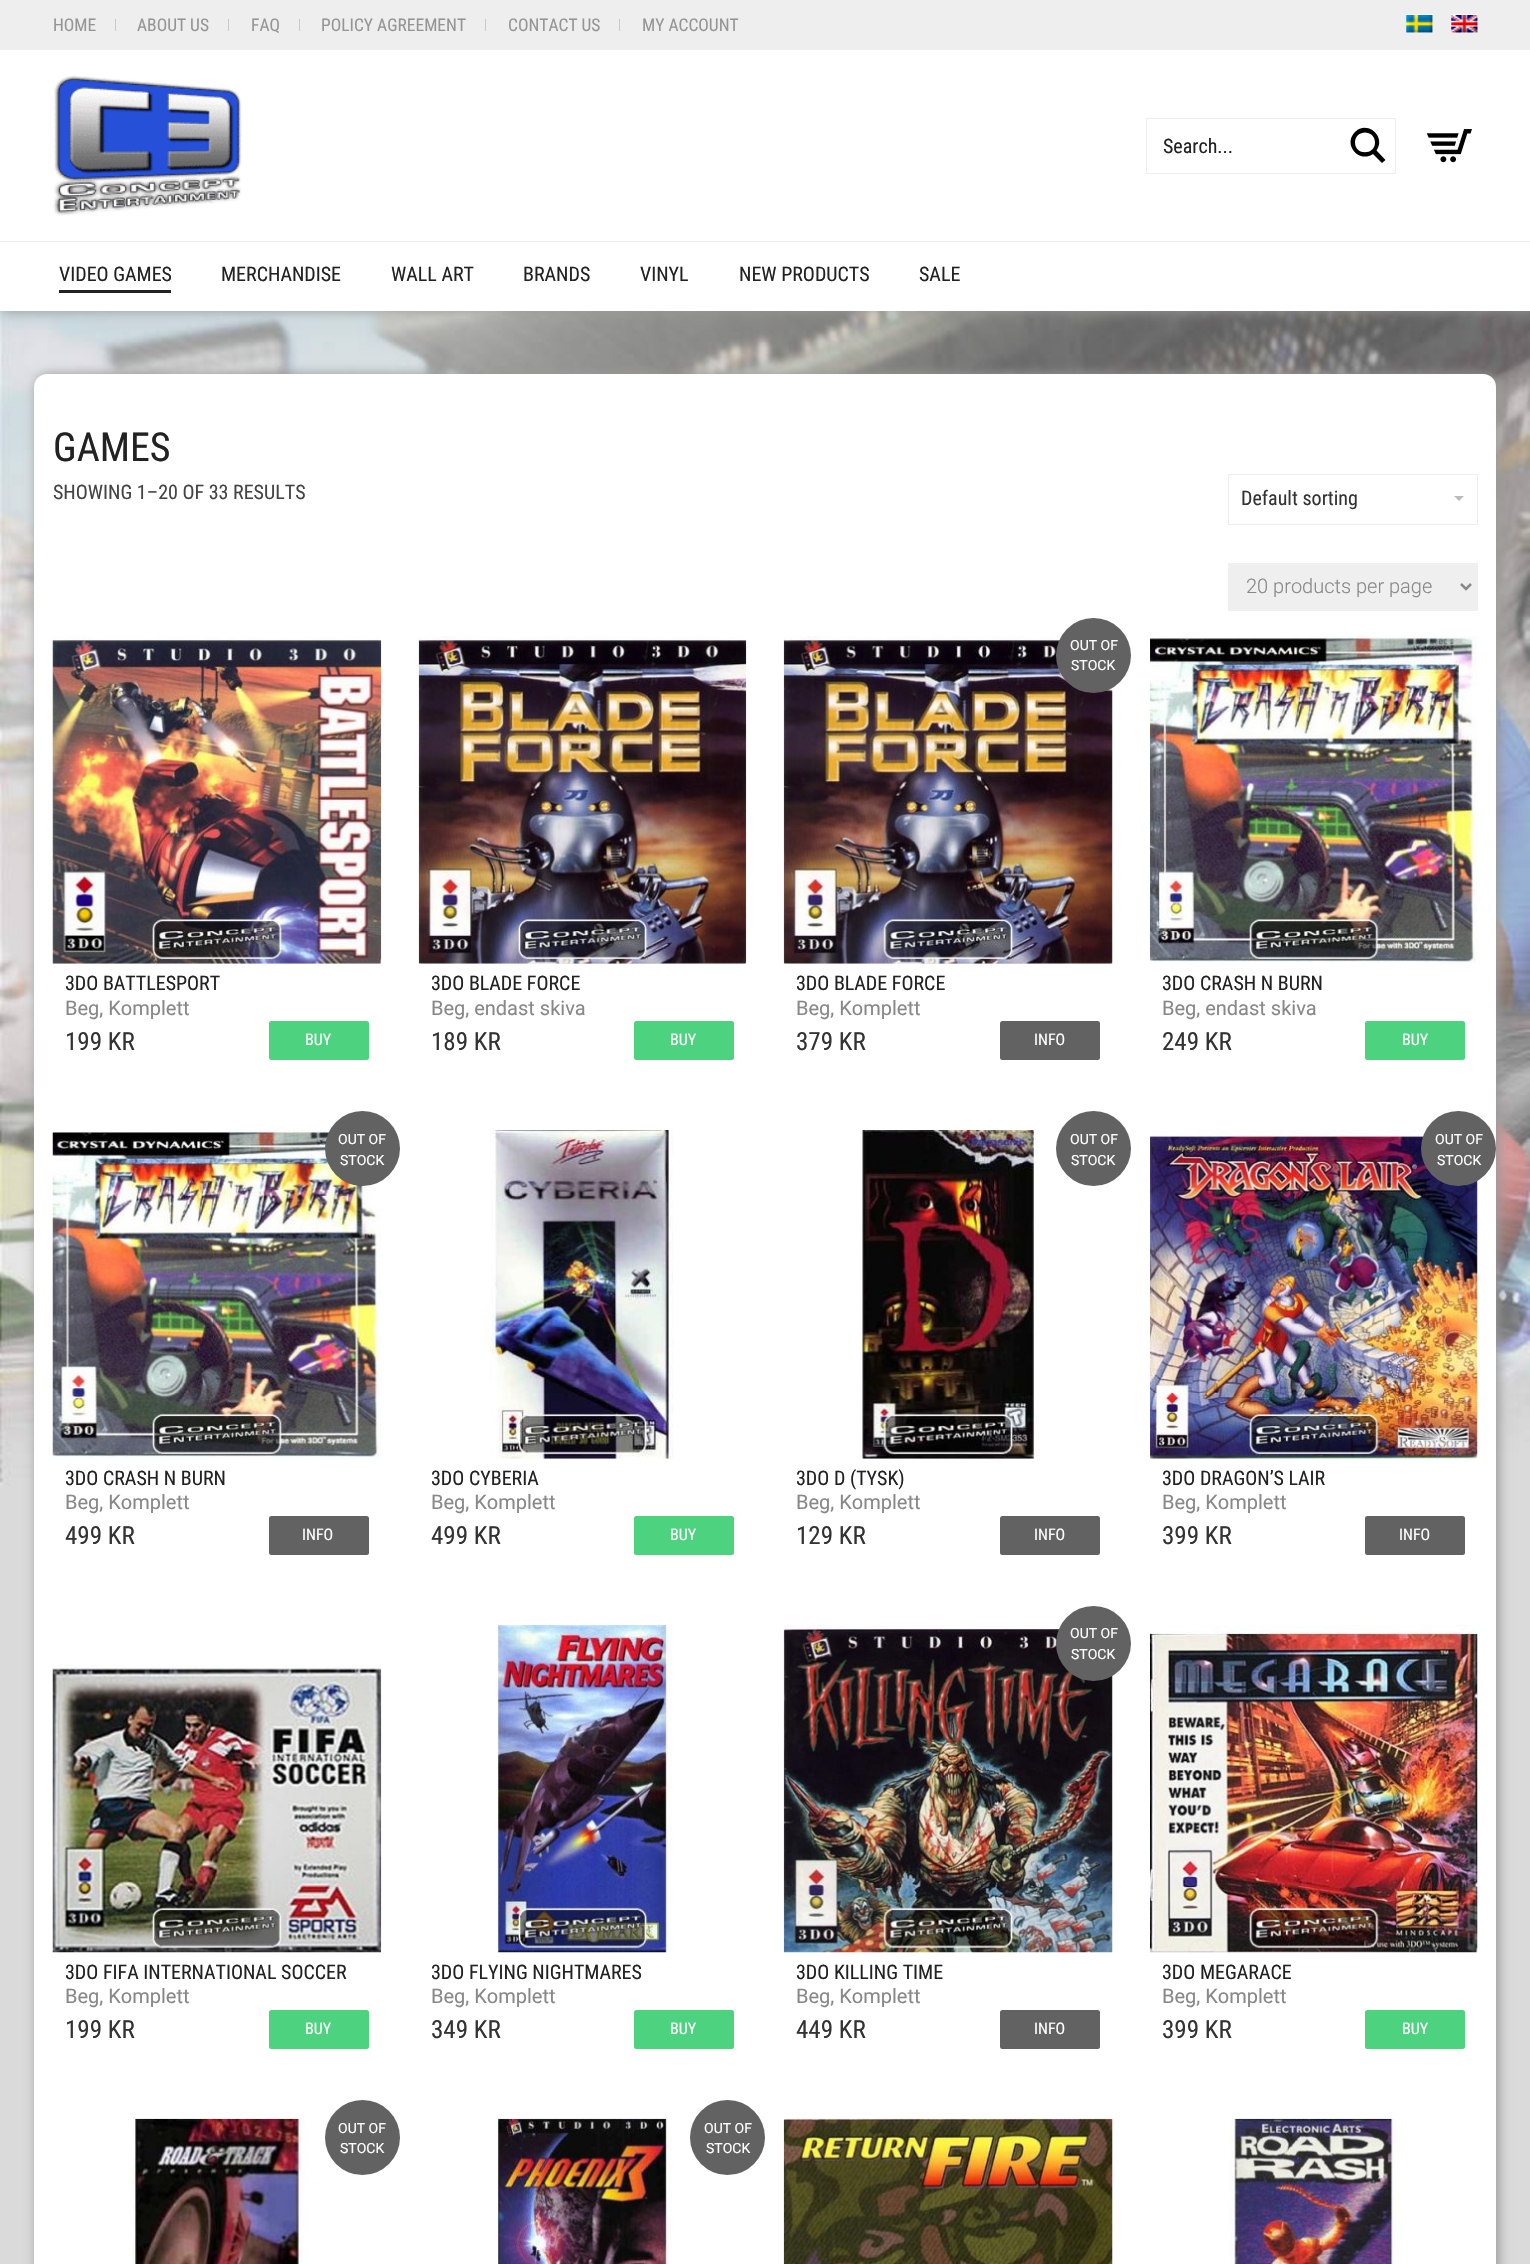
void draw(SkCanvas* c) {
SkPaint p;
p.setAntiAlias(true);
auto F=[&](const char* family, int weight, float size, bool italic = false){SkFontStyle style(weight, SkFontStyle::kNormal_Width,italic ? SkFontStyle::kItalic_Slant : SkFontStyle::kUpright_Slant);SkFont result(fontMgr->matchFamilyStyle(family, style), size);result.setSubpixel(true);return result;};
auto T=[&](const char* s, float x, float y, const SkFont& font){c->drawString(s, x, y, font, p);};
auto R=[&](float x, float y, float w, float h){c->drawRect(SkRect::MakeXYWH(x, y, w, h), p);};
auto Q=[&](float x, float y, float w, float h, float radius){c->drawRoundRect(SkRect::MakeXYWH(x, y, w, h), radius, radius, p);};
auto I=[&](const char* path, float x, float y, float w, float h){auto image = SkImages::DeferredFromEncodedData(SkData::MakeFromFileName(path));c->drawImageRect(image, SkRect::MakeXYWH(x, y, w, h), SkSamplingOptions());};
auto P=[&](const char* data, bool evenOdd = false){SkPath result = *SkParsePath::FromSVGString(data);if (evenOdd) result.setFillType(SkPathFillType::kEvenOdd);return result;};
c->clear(0xffdadada);
I("1.png",0,311,1530,1175);
p.setColor(0xff999999);
p.setMaskFilter(SkMaskFilter::MakeBlur(kNormal_SkBlurStyle, 6));
c->drawRect(SkRect::MakeXYWH(3,0,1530,311),p);
p.setMaskFilter(nullptr);
p.setColor(0xffffffff);
R(0,50,1530,261);
p.setColor(0xffeeeeee);
R(0,0,1530,50);
auto f1 = F("Roboto Condensed",400,17.5);
p.setColor(0xff959595);
T("HOME",53,31,f1);
p.setColor(0xffc9c9c9);
R(115,19,1,12);
p.setColor(0xff959595);
T("ABOUT US",137,31,f1);
p.setColor(0xffc9c9c9);
R(228,19,1,12);
p.setColor(0xff959595);
T("FAQ",251,31,f1);
p.setColor(0xffc9c9c9);
R(299,19,1,12);
p.setColor(0xff959595);
T("POLICY AGREEMENT",321,31,f1);
p.setColor(0xffc9c9c9);
R(485,19,1,12);
p.setColor(0xff959595);
T("CONTACT US",508,31,f1);
p.setColor(0xffc9c9c9);
R(619,19,1,12);
p.setColor(0xff959595);
T("MY ACCOUNT",642,31,f1);
p.setColor(0xffffffff);
R(1406,14,27,19);
I("2.png",1406,15,27,18);
R(1451,14,27,19);
I("3.png",1451,15,27,18);
I("4.png",53,75,189,141);
p.setStroke(true);
p.setStrokeWidth(1);
p.setColor(0xffeeeeee);
c->drawRect(SkRect::MakeXYWH(1146.5,118.5,249,55),p);
auto f2 = F("Roboto Condensed",400,20);
p.setStroke(false);
p.setColor(0xff222222);
T("Search...",1163,153,f2);
p.setColor(0xff000000);
c->drawPath(P("M1385.5 160l-9-9.5c10-13.5-9-31-21.5-18.5c-12.5 12.5 4 31.5 18 22l9 9zm-30.5-17.5c0-13.5 20-13.5 20 0c0 13-20 13-20 0z"),p);
I("5.png",1426,129,46,34);
p.setColor(0xffeeeeee);
R(0,241,1530,1);
p.setColor(0xff222222);
T("VIDEO GAMES",59,281,f2);
R(59,290,112,3);
T("MERCHANDISE",221,281,f2);
T("WALL ART",391,281,f2);
T("BRANDS",523,281,f2);
T("VINYL",640,281,f2);
T("NEW PRODUCTS",739,281,f2);
T("SALE",919,281,f2);
p.setColor(0xff999999);
p.setMaskFilter(SkMaskFilter::MakeBlur(kNormal_SkBlurStyle, 6));
c->drawRoundRect(SkRect::MakeXYWH(36,374,1463,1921),13,13,p);
p.setMaskFilter(nullptr);
p.setColor(0xffffffff);
Q(34,374,1462,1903,13);
auto f3 = F("Roboto Condensed",400,40);
p.setColor(0xff222222);
T("GAMES",53,461,f3);
p.setColor(0xff444444);
T("SHOWING 1–20 OF 33 RESULTS",53,499,f2);
p.setStroke(true);
p.setColor(0xffeeeeee);
c->drawRect(SkRect::MakeXYWH(1228.5,474.5,249,50),p);
p.setStroke(false);
p.setColor(0xff333333);
T("Default sorting",1241,505,f2);
p.setColor(0xffbbbbbb);
c->drawPath(P("M1454 496h10l-5 5z"),p);
p.setColor(0xffefefef);
R(1228,563,250,48);
p.setStroke(true);
p.setStrokeWidth(2.5);
p.setColor(0xff888888);
c->drawPath(P("M1461 584l5 5l5-5"),p);
auto f4 = F("Roboto",300,20);
p.setStroke(false);
T("20 products per page",1246,593,f4);
I("6.png",52,636,330,328);
p.setColor(0xff222222);
T("3DO BATTLESPORT",65,990,f2);
auto f5 = F("Roboto",400,20);
p.setColor(0xff888888);
T("Beg, Komplett",65,1015,f5);
auto f6 = F("Roboto Condensed",400,25);
p.setColor(0xff333333);
T("199 KR",65,1050,f6);
p.setColor(0xff4dd37f);
Q(269,1021,100,39,2.5);
auto f7 = F("Roboto Condensed",400,16);
p.setColor(0xffffffff);
T("BUY",305,1045,f7);
I("7.png",418,636,329,328);
p.setColor(0xff222222);
T("3DO BLADE FORCE",431,990,f2);
p.setColor(0xff888888);
T("Beg, endast skiva",431,1015,f5);
p.setColor(0xff333333);
T("189 KR",431,1050,f6);
p.setColor(0xff4dd37f);
Q(634,1021,100,39,2.5);
p.setColor(0xffffffff);
T("BUY",670,1045,f7);
I("8.png",783,636,330,328);
p.setColor(0xff626262);
c->drawCircle(1093.5,655.5,37.5,p);
auto f8 = F("Roboto",400,14);
p.setColor(0xffffffff);
T("OUT OF",1070,650,f8);
T("STOCK",1071,670,f8);
p.setColor(0xff222222);
T("3DO BLADE FORCE",796,990,f2);
p.setColor(0xff888888);
T("Beg, Komplett",796,1015,f5);
p.setColor(0xff333333);
T("379 KR",796,1050,f6);
p.setColor(0xff626262);
Q(1000,1021,100,39,2.5);
p.setColor(0xffffffff);
T("INFO",1034,1045,f7);
I("9.png",1150,636,327,328);
p.setColor(0xff222222);
T("3DO CRASH N BURN",1162,990,f2);
p.setColor(0xff888888);
T("Beg, endast skiva",1162,1015,f5);
p.setColor(0xff333333);
T("249 KR",1162,1050,f6);
p.setColor(0xff4dd37f);
Q(1365,1021,100,39,2.5);
p.setColor(0xffffffff);
T("BUY",1402,1045,f7);
I("10.png",52,1130,329,329);
p.setColor(0xff626262);
c->drawCircle(362.5,1148.5,37.5,p);
p.setColor(0xffffffff);
T("OUT OF",338,1144,f8);
T("STOCK",340,1165,f8);
p.setColor(0xff222222);
T("3DO CRASH N BURN",65,1485,f2);
p.setColor(0xff888888);
T("Beg, Komplett",65,1509,f5);
p.setColor(0xff333333);
T("499 KR",65,1544,f6);
p.setColor(0xff626262);
Q(269,1516,100,39,2.5);
p.setColor(0xffffffff);
T("INFO",302,1540,f7);
I("11.png",482,1130,192,329);
p.setColor(0xff222222);
T("3DO CYBERIA",431,1485,f2);
p.setColor(0xff888888);
T("Beg, Komplett",431,1509,f5);
p.setColor(0xff333333);
T("499 KR",431,1544,f6);
p.setColor(0xff4dd37f);
Q(634,1516,100,39,2.5);
p.setColor(0xffffffff);
T("BUY",670,1540,f7);
I("12.png",859,1130,180,329);
p.setColor(0xff626262);
c->drawCircle(1093.5,1148.5,37.5,p);
p.setColor(0xffffffff);
T("OUT OF",1070,1144,f8);
T("STOCK",1071,1165,f8);
p.setColor(0xff222222);
T("3DO D (TYSK)",796,1485,f2);
p.setColor(0xff888888);
T("Beg, Komplett",796,1509,f5);
p.setColor(0xff333333);
T("129 KR",796,1544,f6);
p.setColor(0xff626262);
Q(1000,1516,100,39,2.5);
p.setColor(0xffffffff);
T("INFO",1034,1540,f7);
I("13.png",1150,1130,328,329);
p.setColor(0xff626262);
c->drawCircle(1458.5,1148.5,37.5,p);
p.setColor(0xffffffff);
T("OUT OF",1435,1144,f8);
T("STOCK",1437,1165,f8);
p.setColor(0xff222222);
T("3DO DRAGON’S LAIR",1162,1485,f2);
p.setColor(0xff888888);
T("Beg, Komplett",1162,1509,f5);
p.setColor(0xff333333);
T("399 KR",1162,1544,f6);
p.setColor(0xff626262);
Q(1365,1516,100,39,2.5);
p.setColor(0xffffffff);
T("INFO",1399,1540,f7);
I("14.png",52,1665,330,288);
p.setColor(0xff222222);
T("3DO FIFA INTERNATIONAL SOCCER",65,1979,f2);
p.setColor(0xff888888);
T("Beg, Komplett",65,2003,f5);
p.setColor(0xff333333);
T("199 KR",65,2038,f6);
p.setColor(0xff4dd37f);
Q(269,2010,100,39,2.5);
p.setColor(0xffffffff);
T("BUY",305,2034,f7);
I("15.png",497,1625,176,328);
p.setColor(0xff222222);
T("3DO FLYING NIGHTMARES",431,1979,f2);
p.setColor(0xff888888);
T("Beg, Komplett",431,2003,f5);
p.setColor(0xff333333);
T("349 KR",431,2038,f6);
p.setColor(0xff4dd37f);
Q(634,2010,100,39,2.5);
p.setColor(0xffffffff);
T("BUY",670,2034,f7);
I("16.png",783,1625,330,328);
p.setColor(0xff626262);
c->drawCircle(1093.5,1643.5,37.5,p);
p.setColor(0xffffffff);
T("OUT OF",1070,1638,f8);
T("STOCK",1071,1659,f8);
p.setColor(0xff222222);
T("3DO KILLING TIME",796,1979,f2);
p.setColor(0xff888888);
T("Beg, Komplett",796,2003,f5);
p.setColor(0xff333333);
T("449 KR",796,2038,f6);
p.setColor(0xff626262);
Q(1000,2010,100,39,2.5);
p.setColor(0xffffffff);
T("INFO",1034,2034,f7);
I("17.png",1150,1625,328,328);
p.setColor(0xff222222);
T("3DO MEGARACE",1162,1979,f2);
p.setColor(0xff888888);
T("Beg, Komplett",1162,2003,f5);
p.setColor(0xff333333);
T("399 KR",1162,2038,f6);
p.setColor(0xff4dd37f);
Q(1365,2010,100,39,2.5);
p.setColor(0xffffffff);
T("BUY",1402,2034,f7);
I("18.png",132,2118,175,146);
p.setColor(0xff626262);
c->drawCircle(362.5,2137.5,37.5,p);
p.setColor(0xffffffff);
T("OUT OF",338,2133,f8);
T("STOCK",340,2153,f8);
I("19.png",497,2118,176,146);
p.setColor(0xff626262);
c->drawCircle(727.5,2137.5,37.5,p);
p.setColor(0xffffffff);
T("OUT OF",704,2133,f8);
T("STOCK",706,2153,f8);
I("20.png",783,2118,330,146);
I("21.png",1229,2118,175,146);
}
